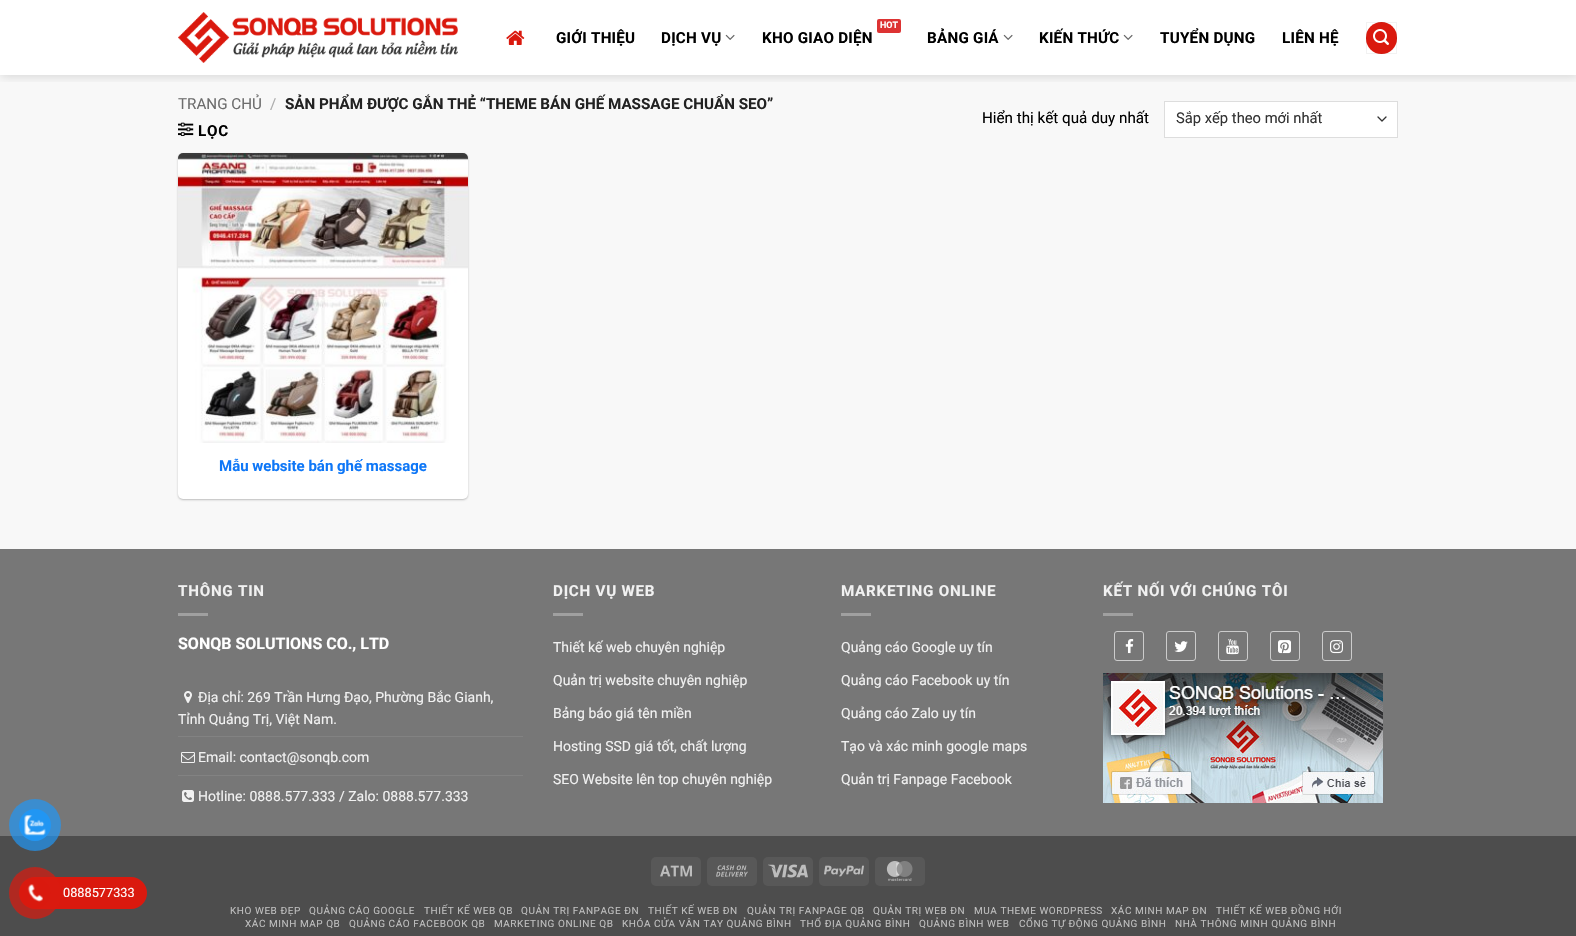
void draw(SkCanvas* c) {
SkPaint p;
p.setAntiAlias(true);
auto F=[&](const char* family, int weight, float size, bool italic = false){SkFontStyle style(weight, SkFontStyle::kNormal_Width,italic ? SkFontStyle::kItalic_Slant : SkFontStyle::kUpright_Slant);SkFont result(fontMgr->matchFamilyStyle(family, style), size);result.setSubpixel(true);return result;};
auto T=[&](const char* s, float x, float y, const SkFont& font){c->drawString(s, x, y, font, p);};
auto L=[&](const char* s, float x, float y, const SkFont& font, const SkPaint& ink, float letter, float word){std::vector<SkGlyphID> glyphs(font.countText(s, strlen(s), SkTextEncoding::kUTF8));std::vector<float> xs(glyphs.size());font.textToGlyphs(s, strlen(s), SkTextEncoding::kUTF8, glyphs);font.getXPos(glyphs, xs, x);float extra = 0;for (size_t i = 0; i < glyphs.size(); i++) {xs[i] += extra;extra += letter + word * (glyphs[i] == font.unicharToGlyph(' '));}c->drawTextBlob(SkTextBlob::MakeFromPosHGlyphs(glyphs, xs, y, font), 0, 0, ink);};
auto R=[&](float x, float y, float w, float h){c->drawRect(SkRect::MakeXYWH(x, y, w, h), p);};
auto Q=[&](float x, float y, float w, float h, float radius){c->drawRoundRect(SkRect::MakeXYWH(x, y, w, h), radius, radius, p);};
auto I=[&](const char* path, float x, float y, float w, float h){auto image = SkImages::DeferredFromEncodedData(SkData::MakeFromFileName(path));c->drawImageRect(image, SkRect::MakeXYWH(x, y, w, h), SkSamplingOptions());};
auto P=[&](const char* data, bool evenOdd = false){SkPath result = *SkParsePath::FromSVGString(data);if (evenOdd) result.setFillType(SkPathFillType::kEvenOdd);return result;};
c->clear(0xffffffff);
p.setColor(0xff777777);
R(0,549,1576,287);
p.setColor(0xff4d4d4d);
R(0,836,1576,100);
p.setColor(0xb32196f3);
c->drawCircle(35,825,26,p);
p.setColor(0xff2196f3);
c->drawCircle(35,825,16,p);
I("1.png",24,815,22,21);
p.setColor(0xffda190e);
Q(23,877,124,32,16);
p.setColor(0xb3da190e);
c->drawCircle(35,893,26,p);
p.setColor(0xffda190e);
c->drawCircle(35,893,16,p);
I("2.png",27,884,16,18);
auto f1 = F("Roboto",400,12.75);
p.setColor(0xffffffff);
T("0888577333",63,897,f1);
p.setColor(0xfff8f8f8);
R(0,75,1576,474);
c->save();
c->clipRect(SkRect::MakeXYWH(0,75,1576,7));
p.setColor(0x26000000);
p.setMaskFilter(SkMaskFilter::MakeBlur(kNormal_SkBlurStyle, 5));
c->drawRect(SkRect::MakeXYWH(1,1,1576,75),p);
p.setMaskFilter(nullptr);
c->restore();
I("3.png",178,12,280,51);
I("4.png",506,30,19,15);
auto f2 = F("Roboto",700,15.2);
p.setColor(0xff000000);
L("GIỚI THIỆU",556,43,f2,p,.25,0);
L("DỊCH VỤ",661,43,f2,p,.25,0);
I("5.png",725,34,10,6);
p.setColor(0xffdd3333);
Q(877,19,24,14,2);
auto f3 = F("Roboto",700,9);
p.setColor(0xffffffff);
T("HOT",880,28,f3);
p.setColor(0xff000000);
L("KHO GIAO DIỆN",762,43,f2,p,.25,0);
L("BẢNG GIÁ",927,43,f2,p,.25,0);
I("5.png",1003,34,10,6);
L("KIẾN THỨC",1039,43,f2,p,.25,0);
I("5.png",1123,34,10,6);
L("TUYỂN DỤNG",1160,43,f2,p,.25,0);
L("LIÊN HỆ",1282,43,f2,p,.25,0);
p.setColor(0xffda190e);
Q(1366,22,31,32,15.5);
p.setStroke(true);
p.setStrokeWidth(1);
p.setColor(0x0d000000);
c->drawRect(SkRect::MakeXYWH(1366.5,22.5,30,31),p);
I("6.png",1373,29,16,16);
auto f4 = F("Roboto",400,15.2);
p.setStroke(false);
p.setColor(0xff6d6d6d);
T("TRANG CHỦ",178,109,f4);
p.setColor(0xffadadad);
T("/",270,109,f4);
p.setColor(0xff222222);
T("SẢN PHẨM ĐƯỢC GẮN THẺ “THEME BÁN GHẾ MASSAGE CHUẨN SEO”",285,109,f2);
I("7.png",178,122,16,14);
p.setColor(0xff000000);
L("LỌC",198,136,f2,p,.75,0);
T("Hiển thị kết quả duy nhất",982,123,f4);
p.setColor(0xffffffff);
R(1165,102,232,35);
p.setStroke(true);
p.setStrokeWidth(1.3);
p.setStrokeCap(SkPaint::kRound_Cap);
p.setStrokeJoin(SkPaint::kRound_Join);
p.setColor(0xff333333);
c->drawPath(P("M1378 117l4 4l4-4"),p);
p.setStrokeWidth(1);
p.setStrokeCap(SkPaint::kButt_Cap);
p.setStrokeJoin(SkPaint::kMiter_Join);
p.setColor(0xffdddddd);
c->drawRect(SkRect::MakeXYWH(1164.5,101.5,233,36),p);
auto f5 = F("Roboto",400,14.75);
p.setStroke(false);
p.setColor(0xff333333);
T("Sắp xếp theo mới nhất",1176,123,f5);
p.setColor(0x3d000000);
p.setMaskFilter(SkMaskFilter::MakeBlur(kNormal_SkBlurStyle, 1));
c->drawRoundRect(SkRect::MakeXYWH(178,154,290,346),5,5,p);
p.setMaskFilter(nullptr);
p.setColor(0xffffffff);
Q(178,153,290,346,5);
I("8.png",178,153,290,290);
auto f6 = F("Roboto",700,15);
p.setColor(0xff0e77f7);
T("Mẫu website bán ghế massage",219,471,f6);
p.setColor(0xfff1f1f1);
L("THÔNG TIN",178,596,f2,p,.75,0);
p.setColor(0xffa0a0a0);
R(178,613,30,3);
auto f7 = F("Roboto",700,16);
p.setColor(0xffffffff);
T("SONQB SOLUTIONS CO., LTD",178,649,f7);
I("9.png",184,691,8,12);
auto f8 = F("Roboto",400,14);
p.setColor(0xfff1f1f1);
T("Địa chỉ: 269 Trần Hưng Đạo, Phường Bắc Gianh,",198,702,f8);
T("Tỉnh Quảng Trị, Việt Nam.",178,724,f8);
p.setColor(0xff828282);
R(178,736,345,1);
I("10.png",181,752,14,11);
p.setColor(0xfff1f1f1);
T("Email: contact@sonqb.com",198,762,f8);
p.setColor(0xff828282);
R(178,775,345,1);
I("11.png",182,790,12,12);
p.setColor(0xfff1f1f1);
T("Hotline: 0888.577.333 / Zalo: 0888.577.333",198,801,f8);
L("DỊCH VỤ WEB",553,596,f2,p,.75,0);
p.setColor(0xffa0a0a0);
R(553,613,30,3);
p.setColor(0xfff1f1f1);
T("Thiết kế web chuyên nghiệp",553,652,f8);
T("Quản trị website chuyên nghiệp",553,685,f8);
T("Bảng báo giá tên miền",553,718,f8);
T("Hosting SSD giá tốt, chất lượng",553,751,f8);
T("SEO Website lên top chuyên nghiệp",553,784,f8);
L("MARKETING ONLINE",841,596,f2,p,.75,0);
p.setColor(0xffa0a0a0);
R(841,613,30,3);
p.setColor(0xfff1f1f1);
T("Quảng cáo Google uy tín",841,652,f8);
T("Quảng cáo Facebook uy tín",841,685,f8);
T("Quảng cáo Zalo uy tín",841,718,f8);
T("Tạo và xác minh google maps",841,751,f8);
T("Quản trị Fanpage Facebook",841,784,f8);
L("KẾT NỐI VỚI CHÚNG TÔI",1103,596,f2,p,.75,0);
p.setColor(0xffa0a0a0);
R(1103,613,30,3);
p.setStroke(true);
p.setColor(0xffcccccc);
c->drawRoundRect(SkRect::MakeXYWH(1114.5,631.5,29,29),2.5,2.5,p);
I("12.png",1125,639,9,15);
c->drawRoundRect(SkRect::MakeXYWH(1166.5,631.5,29,29),2.5,2.5,p);
I("13.png",1174,641,14,11);
c->drawRoundRect(SkRect::MakeXYWH(1218.5,631.5,29,29),2.5,2.5,p);
I("14.png",1226,639,13,16);
c->drawRoundRect(SkRect::MakeXYWH(1270.5,631.5,29,29),2.5,2.5,p);
I("15.png",1278,640,13,14);
c->drawRoundRect(SkRect::MakeXYWH(1322.5,631.5,29,29),2.5,2.5,p);
I("16.png",1330,640,13,14);
I("17.png",1103,673,280,130);
p.setStroke(false);
p.setColor(0xff585858);
Q(651,857,50,29,5);
I("18.png",660,865,32,12);
Q(707,857,50,29,5);
I("19.png",716,865,32,12);
Q(763,857,50,29,5);
I("20.png",768,864,40,14);
Q(819,857,50,29,5);
I("21.png",824,865,40,12);
Q(875,857,50,29,5);
I("22.png",886,861,27,20);
auto f9 = F("Roboto",400,10);
p.setColor(0xffbfbfbf);
L("KHO WEB ĐẸP",230,914,f9,p,.55,0);
L("QUẢNG CÁO GOOGLE",309,914,f9,p,.55,0);
L("THIẾT KẾ WEB QB",424,914,f9,p,.55,0);
L("QUẢN TRỊ FANPAGE ĐN",521,914,f9,p,.55,0);
L("THIẾT KẾ WEB ĐN",648,914,f9,p,.55,0);
L("QUẢN TRỊ FANPAGE QB",747,914,f9,p,.55,0);
L("QUẢN TRỊ WEB ĐN",873,914,f9,p,.55,0);
L("MUA THEME WORDPRESS",974,914,f9,p,.55,0);
L("XÁC MINH MAP ĐN",1111,914,f9,p,.55,0);
L("THIẾT KẾ WEB ĐỒNG HỚI",1216,914,f9,p,.55,0);
L("XÁC MINH MAP QB",245,927,f9,p,.55,0);
L("QUẢNG CÁO FACEBOOK QB",349,927,f9,p,.55,0);
L("MARKETING ONLINE QB",494,927,f9,p,.55,0);
L("KHÓA CỬA VÂN TAY QUẢNG BÌNH",622,927,f9,p,.55,0);
L("THỔ ĐỊA QUẢNG BÌNH",800,927,f9,p,.55,0);
L("QUẢNG BÌNH WEB",919,927,f9,p,.55,0);
L("CỔNG TỰ ĐỘNG QUẢNG BÌNH",1019,927,f9,p,.55,0);
L("NHÀ THÔNG MINH QUẢNG BÌNH",1175,927,f9,p,.55,0);
}
